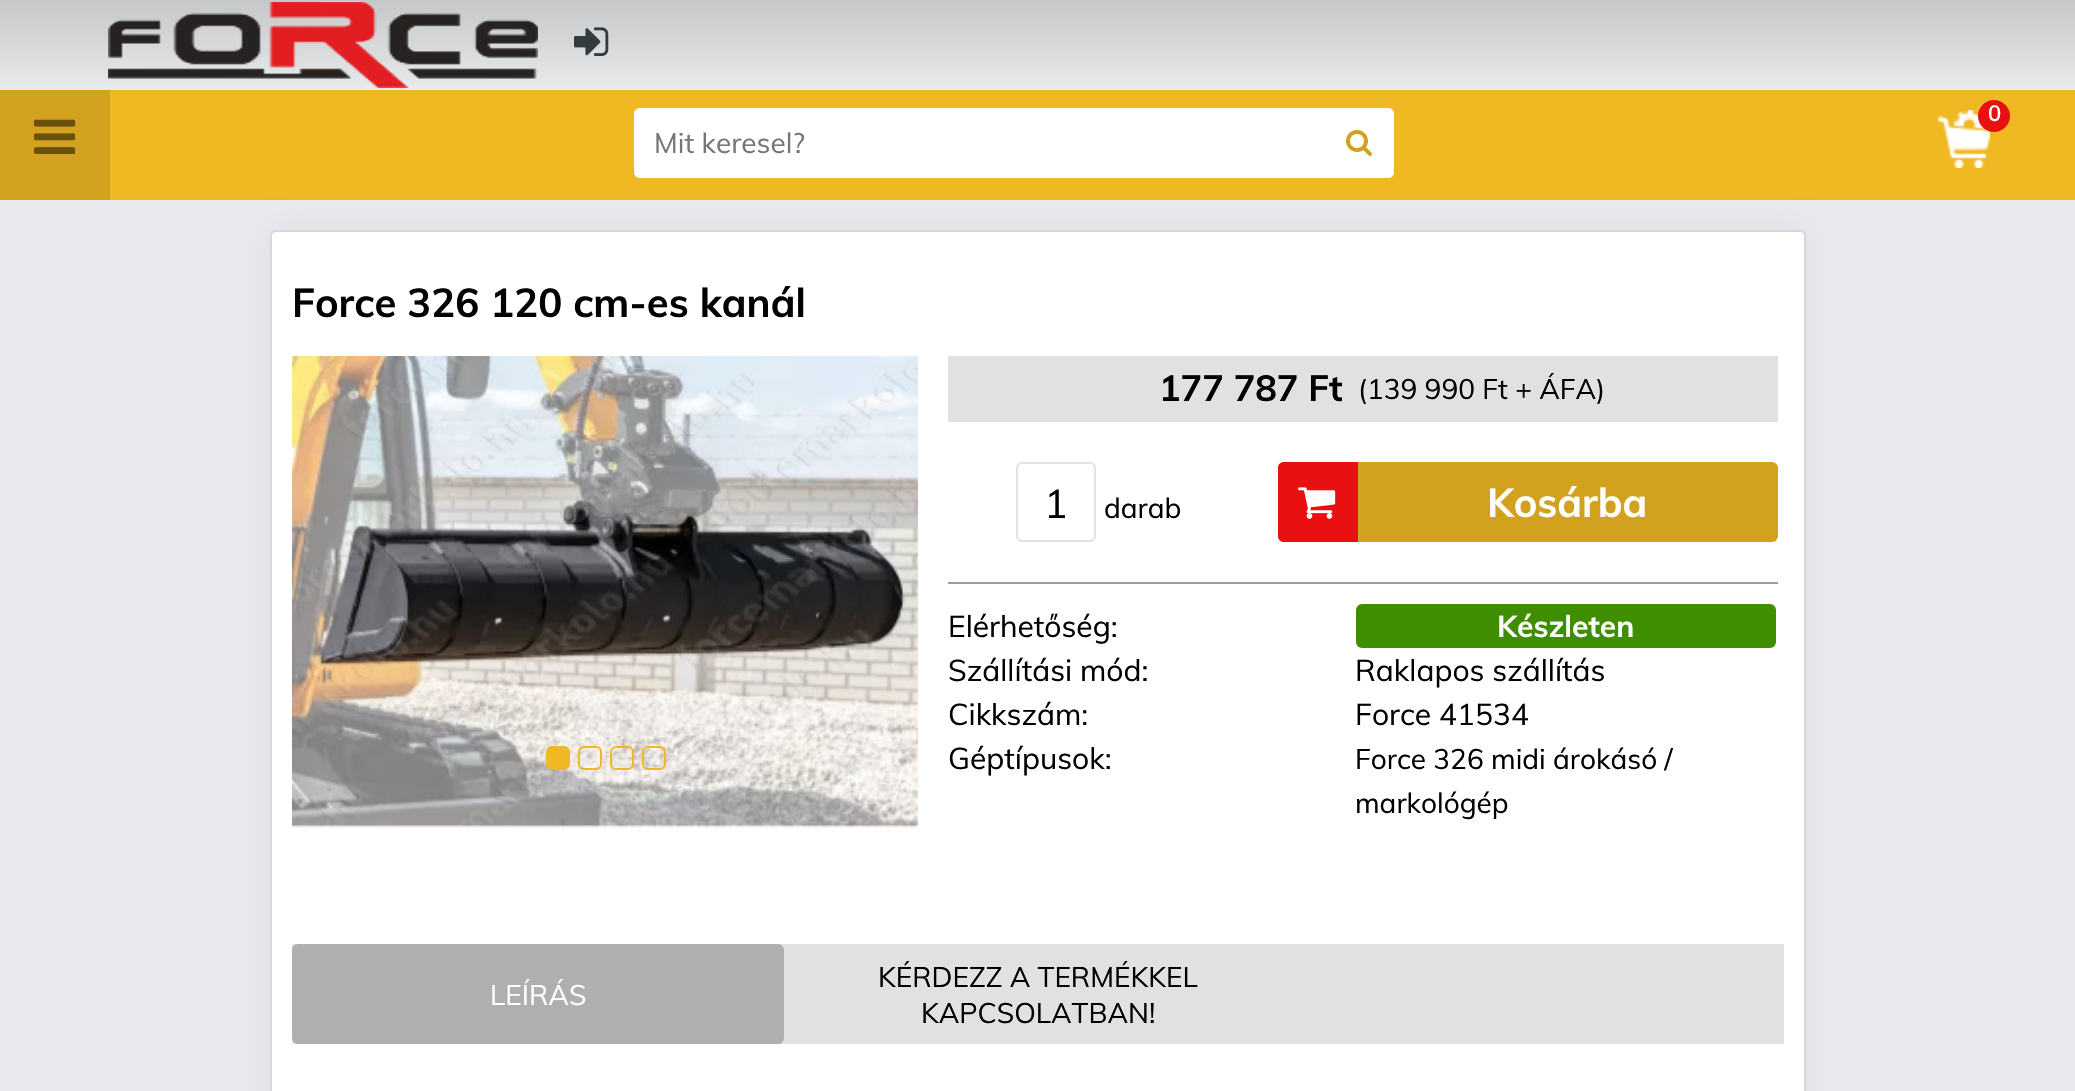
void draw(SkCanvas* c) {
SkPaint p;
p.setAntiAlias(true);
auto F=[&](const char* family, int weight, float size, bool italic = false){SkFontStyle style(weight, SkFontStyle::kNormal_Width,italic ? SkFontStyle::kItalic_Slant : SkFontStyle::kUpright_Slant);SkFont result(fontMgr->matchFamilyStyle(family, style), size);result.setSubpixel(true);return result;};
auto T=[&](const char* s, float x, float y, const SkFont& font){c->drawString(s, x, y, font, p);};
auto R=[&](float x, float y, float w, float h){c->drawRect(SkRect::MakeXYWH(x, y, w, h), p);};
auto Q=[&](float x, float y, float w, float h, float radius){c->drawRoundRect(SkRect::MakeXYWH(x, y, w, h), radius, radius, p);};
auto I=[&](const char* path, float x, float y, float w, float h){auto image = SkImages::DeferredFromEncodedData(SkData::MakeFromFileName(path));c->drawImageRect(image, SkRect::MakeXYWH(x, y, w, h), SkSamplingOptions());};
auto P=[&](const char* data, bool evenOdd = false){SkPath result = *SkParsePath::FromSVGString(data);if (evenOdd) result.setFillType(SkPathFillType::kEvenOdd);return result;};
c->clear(0xffe8eaed);
{
const SkColor colors[] = {0xffc5c7c9,0xffe8eaec};
const float stops[] = {0,1};
const SkPoint ends[] = {{1038,0}, {1038,90}};
p.setShader(SkGradientShader::MakeLinear(ends, colors, stops, 2, SkTileMode::kClamp));
p.setAlpha(255);
}
R(0,0,2075,86);
I("1.png",108,2,430,86);
I("2.png",574,27,35,29);
p.setShader(nullptr);
p.setColor(0xfff0b823);
R(110,90,1965,110);
p.setColor(0xffd2a11e);
R(0,90,110,110);
I("3.png",34,119,42,35);
I("4.png",1938,110,52,58);
p.setColor(0xffe81010);
c->drawCircle(1994,116,16,p);
auto f1 = F("Muli",600,22);
p.setColor(0xffffffff);
T("0",1988,121,f1);
Q(634,108,760,70,6);
Q(634,108,690,70,6);
auto f2 = F("Muli",400,28);
p.setColor(0xff757575);
T("Mit keresel?",654,153,f2);
p.setColor(0xffffffff);
Q(1324,108,70,70,6);
I("5.png",1346,130,26,26);
p.setColor(0x0d020202);
p.setMaskFilter(SkMaskFilter::MakeBlur(kNormal_SkBlurStyle, 15));
c->drawRoundRect(SkRect::MakeXYWH(270,230,1536,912),6,6,p);
p.setMaskFilter(nullptr);
p.setColor(0xffffffff);
c->drawRoundRect(SkRect::MakeXYWH(271,231,1534,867),5,5,p);
p.setStroke(true);
p.setStrokeWidth(2);
p.setColor(0xffd7d7d7);
c->drawRoundRect(SkRect::MakeXYWH(271,231,1534,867),5,5,p);
auto f3 = F("Muli",700,40);
p.setStroke(false);
p.setColor(0xff000000);
T("Force 326 120 cm-es kanál",292,317,f3);
I("6.png",292,356,626,472);
p.setColor(0xfff0b823);
c->drawRoundRect(SkRect::MakeXYWH(547,747,22,22),5,5,p);
p.setStroke(true);
c->drawRoundRect(SkRect::MakeXYWH(547,747,22,22),5,5,p);
c->drawRoundRect(SkRect::MakeXYWH(579,747,22,22),5,5,p);
c->drawRoundRect(SkRect::MakeXYWH(611,747,22,22),5,5,p);
c->drawRoundRect(SkRect::MakeXYWH(643,747,22,22),5,5,p);
p.setStroke(false);
p.setColor(0xffe1e1e1);
R(948,356,830,66);
auto f4 = F("Muli",700,36);
p.setColor(0xff000000);
T("177 787 Ft",1159,401,f4);
T("(139 990 Ft + ÁFA)",1358,399,f2);
p.setStroke(true);
p.setColor(0xffe0e2e1);
c->drawRoundRect(SkRect::MakeXYWH(1017,463,78,78),5,5,p);
auto f5 = F("Muli",400,40);
p.setStroke(false);
p.setColor(0xff000000);
T("1",1044,518,f5);
T("darab",1104,518,f2);
p.setColor(0xffd2a11e);
Q(1278,462,500,80,6);
p.setColor(0xffe81010);
c->drawPath(P("M1284 462h74v80h-74c-3.5 0-6-2.5-6-6v-68c0-3.5 2.5-6 6-6z"),p);
I("7.png",1298,487,38,32);
p.setColor(0xffffffff);
T("Kosárba",1487,517,f3);
p.setColor(0xff999d9e);
R(948,582,830,2);
auto f6 = F("Muli",400,30);
p.setColor(0xff000000);
T("Elérhetőség:",948,637,f6);
p.setColor(0xff3f8e00);
Q(1356,604,420,44,6);
auto f7 = F("Muli",700,30);
p.setColor(0xffffffff);
T("Készleten",1497,637,f7);
p.setColor(0xff000000);
T("Szállítási mód:",948,681,f6);
T("Raklapos szállítás",1355,681,f6);
T("Cikkszám:",948,725,f6);
T("Force 41534",1355,725,f6);
T("Géptípusok:",948,769,f6);
T("Force 326 midi árokásó /",1355,769,f2);
T("markológép",1355,813,f2);
p.setColor(0xffe1e1e1);
R(292,944,1492,100);
p.setColor(0xffadafb0);
Q(292,944,492,100,6);
p.setColor(0xffffffff);
T("LEÍRÁS",490,1005,f2);
p.setColor(0xff000000);
T("KÉRDEZZ A TERMÉKKEL",878,987,f2);
T("KAPCSOLATBAN!",921,1023,f2);
}
